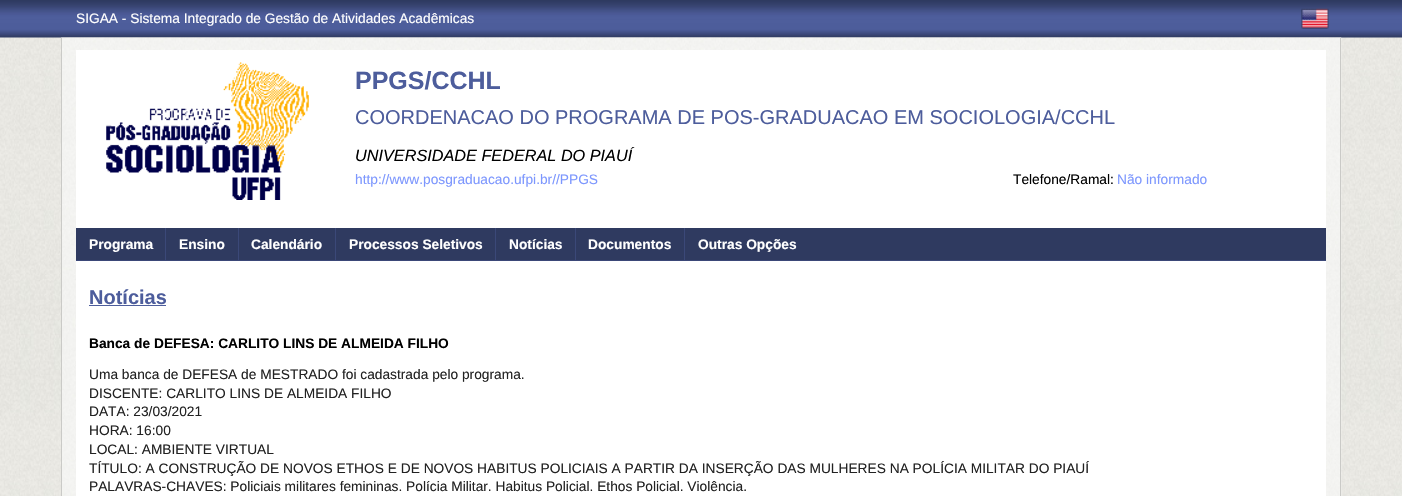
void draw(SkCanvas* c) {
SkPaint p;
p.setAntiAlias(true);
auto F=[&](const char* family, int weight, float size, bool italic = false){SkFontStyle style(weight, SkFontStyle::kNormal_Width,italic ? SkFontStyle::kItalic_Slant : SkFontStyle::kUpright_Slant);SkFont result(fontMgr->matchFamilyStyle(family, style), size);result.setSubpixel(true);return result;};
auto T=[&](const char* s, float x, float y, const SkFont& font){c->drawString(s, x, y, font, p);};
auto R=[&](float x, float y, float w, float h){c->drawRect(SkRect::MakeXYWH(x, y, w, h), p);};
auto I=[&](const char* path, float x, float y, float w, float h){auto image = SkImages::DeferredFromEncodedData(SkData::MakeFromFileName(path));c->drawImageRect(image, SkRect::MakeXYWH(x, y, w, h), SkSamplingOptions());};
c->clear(0xffffffff);
I("1.png",0,37,1402,459);
I("2.png",0,0,1402,38);
auto f1 = F("Liberation Sans",400,13.75);
p.setColor(0xffffffff);
T("SIGAA - Sistema Integrado de Gestão de Atividades Acadêmicas",76,23,f1);
I("3.png",1301,8,28,21);
I("4.png",61,37,1281,459);
p.setColor(0xffcacac7);
R(1340,38,1,458);
R(61,38,1,458);
p.setColor(0xffffffff);
R(76,50,1250,446);
I("5.png",106,62,203,138);
auto f2 = F("Liberation Sans",700,25);
p.setColor(0xff4d5d9c);
T("PPGS/CCHL",355,89,f2);
auto f3 = F("Liberation Sans",400,20);
T("COORDENACAO DO PROGRAMA DE POS-GRADUACAO EM SOCIOLOGIA/CCHL",355,124,f3);
auto f4 = F("Liberation Sans",400,16.25,true);
p.setColor(0xff000000);
T("UNIVERSIDADE FEDERAL DO PIAUÍ",355,161,f4);
p.setColor(0xff7d97fe);
T("http://www.posgraduacao.ufpi.br//PPGS",355,184,f1);
p.setColor(0xff000000);
T("Telefone/Ramal:",1013,184,f1);
p.setColor(0xff7d97fe);
T("Não informado",1117,184,f1);
p.setColor(0xff2f3a60);
R(76,228,1250,32);
p.setColor(0xff3b4878);
R(76,260,1250,1);
auto f5 = F("Liberation Sans",700,13.75);
p.setColor(0xffffffff);
T("Programa",89,249,f5);
p.setColor(0xff3b4878);
R(165,228,1,33);
p.setColor(0xffffffff);
T("Ensino",179,249,f5);
p.setColor(0xff3b4878);
R(238,228,1,33);
p.setColor(0xffffffff);
T("Calendário",251,249,f5);
p.setColor(0xff3b4878);
R(335,228,1,33);
p.setColor(0xffffffff);
T("Processos Seletivos",349,249,f5);
p.setColor(0xff3b4878);
R(495,228,1,33);
p.setColor(0xffffffff);
T("Notícias",509,249,f5);
p.setColor(0xff3b4878);
R(575,228,1,33);
p.setColor(0xffffffff);
T("Documentos",588,249,f5);
p.setColor(0xff3b4878);
R(684,228,1,33);
p.setColor(0xffffffff);
T("Outras Opções",698,249,f5);
auto f6 = F("Liberation Sans",700,20);
p.setColor(0xff4d5d9c);
T("Notícias",89,304,f6);
R(89,305,77,1);
p.setColor(0xff000000);
T("Banca de DEFESA: CARLITO LINS DE ALMEIDA FILHO",89,348,f5);
p.setColor(0xff222222);
T("Uma banca de DEFESA de MESTRADO foi cadastrada pelo programa.",89,379,f1);
T("DISCENTE: CARLITO LINS DE ALMEIDA FILHO",89,398,f1);
T("DATA: 23/03/2021",89,416,f1);
T("HORA: 16:00",89,435,f1);
T("LOCAL: AMBIENTE VIRTUAL",89,454,f1);
T("TÍTULO: A CONSTRUÇÃO DE NOVOS ETHOS E DE NOVOS HABITUS POLICIAIS A PARTIR DA INSERÇÃO DAS MULHERES NA POLÍCIA MILITAR DO PIAUÍ",89,473,f1);
T("PALAVRAS-CHAVES: Policiais militares femininas. Polícia Militar. Habitus Policial. Ethos Policial. Violência.",89,491,f1);
}
